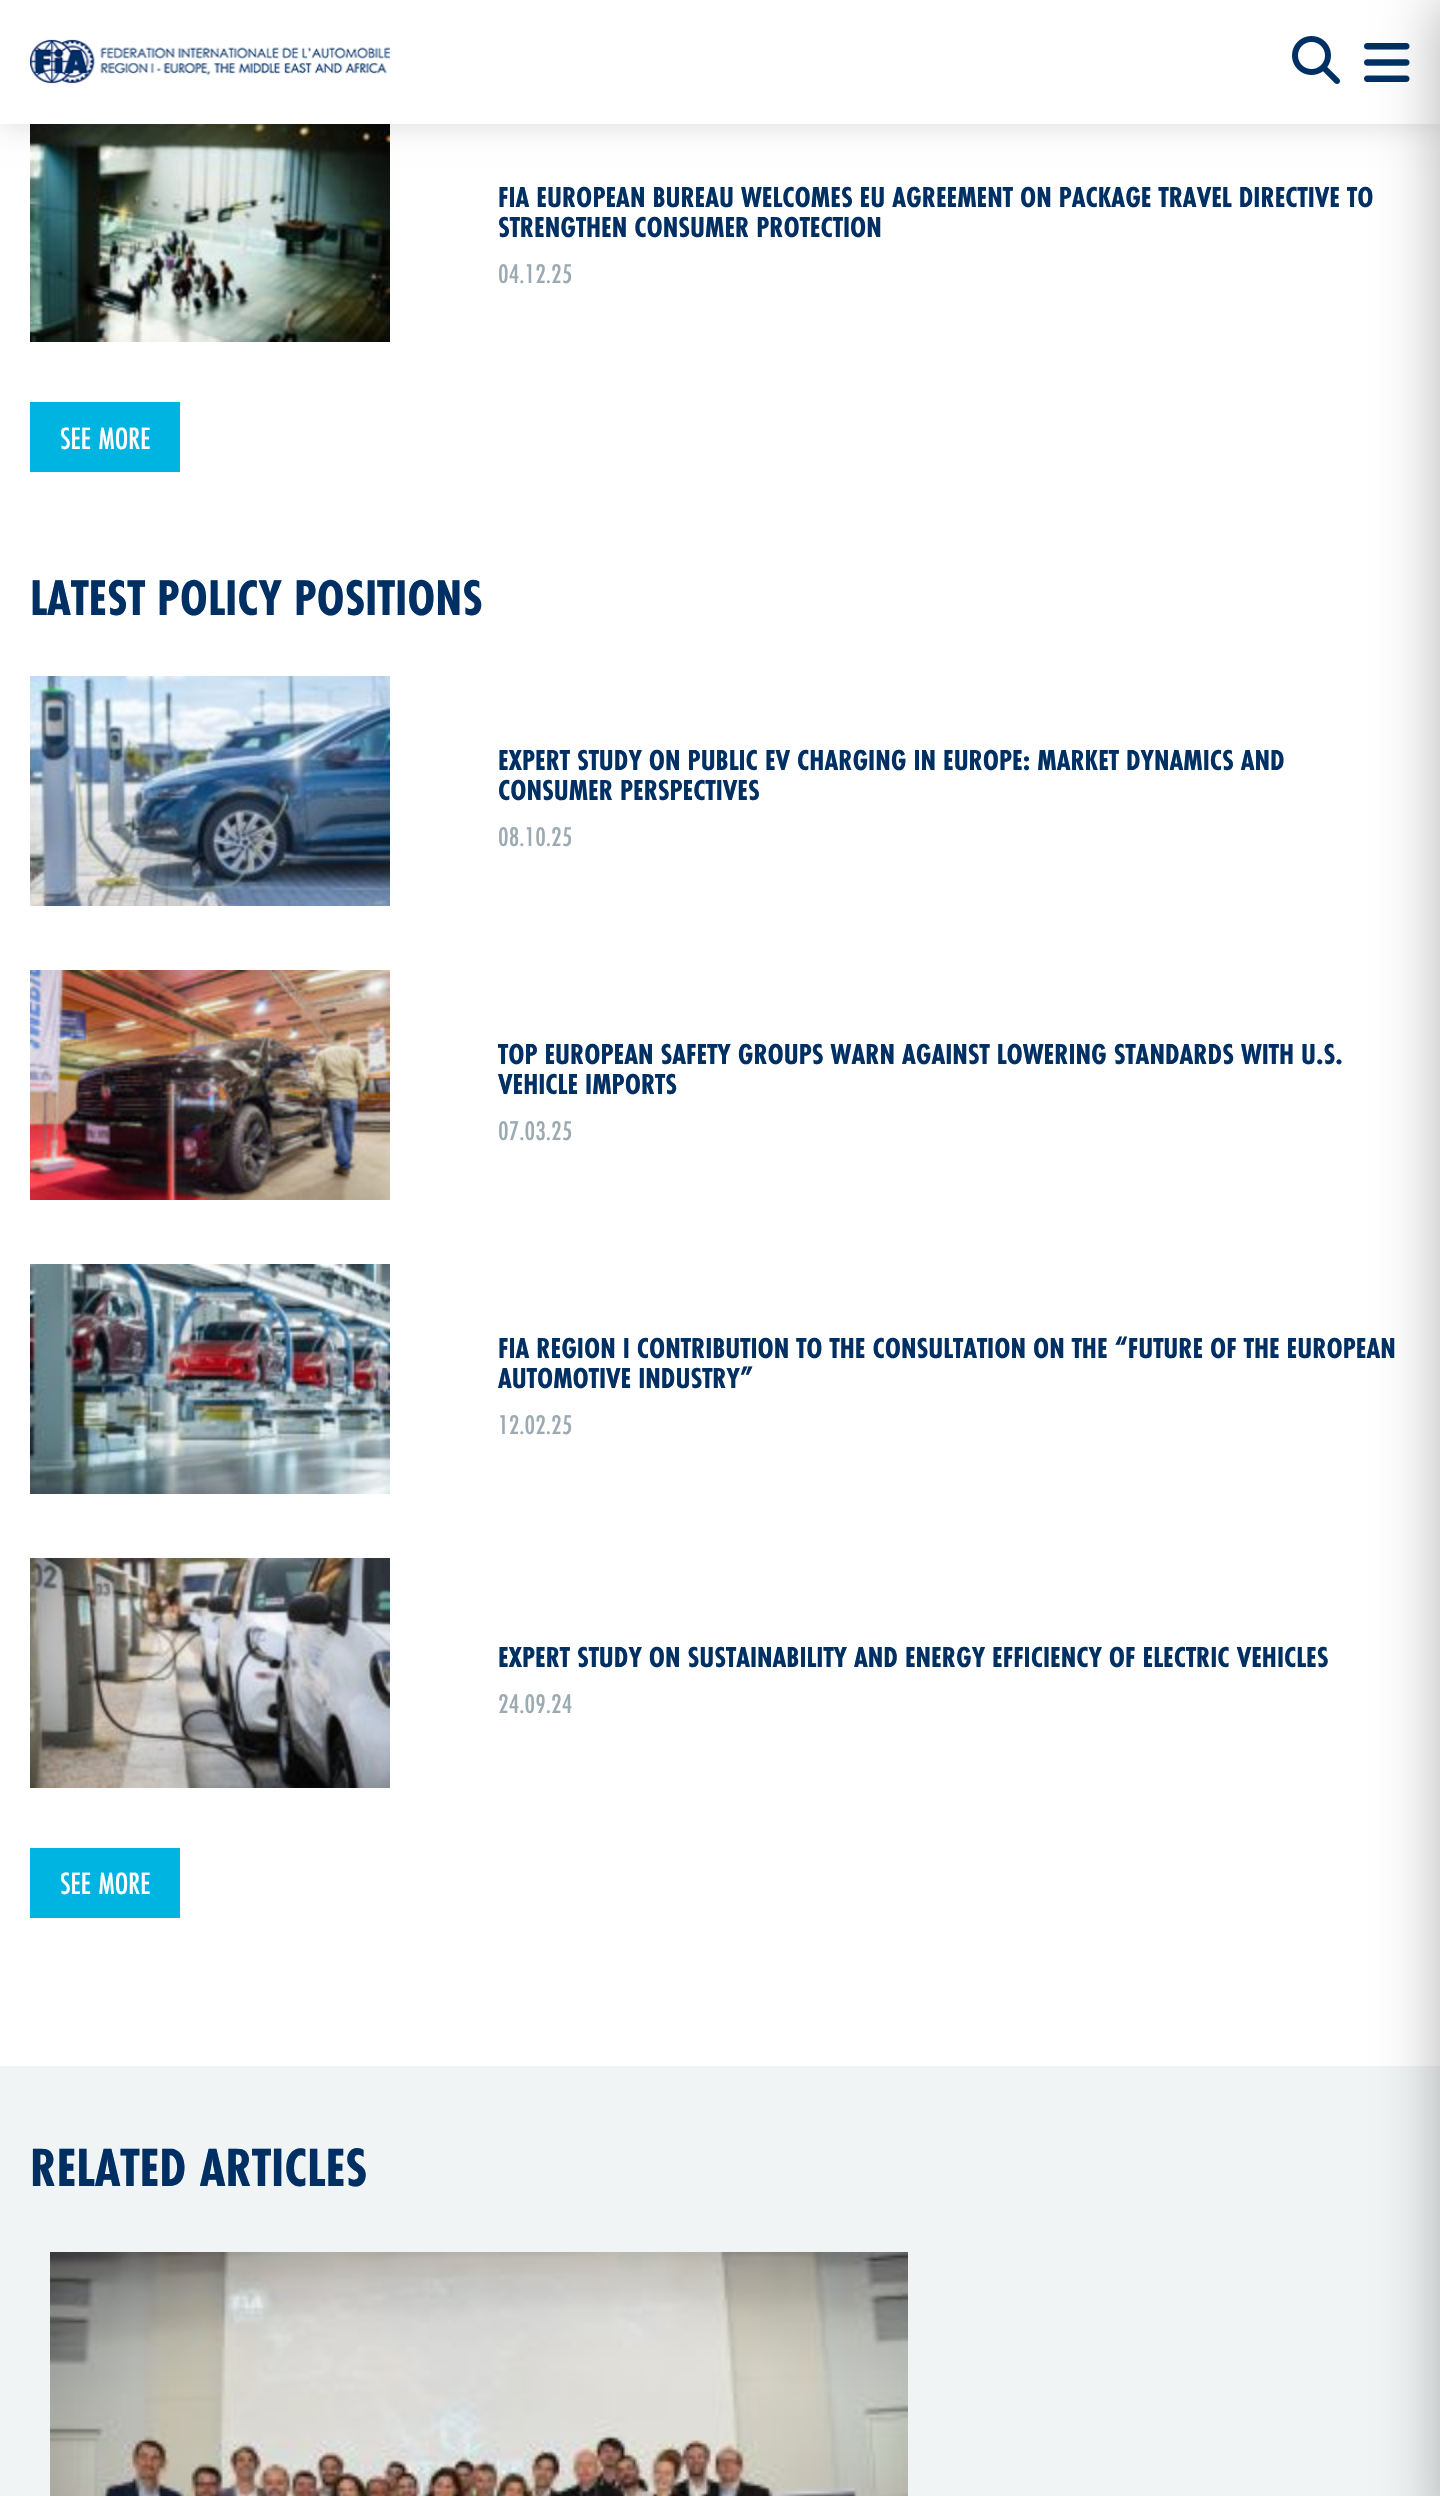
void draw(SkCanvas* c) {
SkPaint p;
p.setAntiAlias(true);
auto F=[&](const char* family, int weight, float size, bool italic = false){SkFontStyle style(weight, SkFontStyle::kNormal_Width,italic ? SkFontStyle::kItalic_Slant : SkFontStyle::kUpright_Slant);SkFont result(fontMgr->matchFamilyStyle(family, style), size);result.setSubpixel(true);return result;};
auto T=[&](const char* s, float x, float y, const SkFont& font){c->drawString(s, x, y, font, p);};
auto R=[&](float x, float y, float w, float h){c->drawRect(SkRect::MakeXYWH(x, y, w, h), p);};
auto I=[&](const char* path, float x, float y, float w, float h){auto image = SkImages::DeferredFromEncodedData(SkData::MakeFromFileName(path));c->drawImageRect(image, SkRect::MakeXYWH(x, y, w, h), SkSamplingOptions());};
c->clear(0xffffffff);
I("4.png",30,124,360,218);
p.setColor(0x26000000);
p.setMaskFilter(SkMaskFilter::MakeBlur(kNormal_SkBlurStyle, 15));
c->drawRect(SkRect::MakeXYWH(0,0,1440,124),p);
p.setMaskFilter(nullptr);
p.setColor(0xffffffff);
R(0,0,1440,124);
I("1.png",30,39,360,45);
I("2.png",1292,36,48,48);
I("3.png",1364,43,46,39);
p.setColor(0xfff1f4f5);
R(0,2066,1440,430);
p.setColor(0x4d000000);
p.setMaskFilter(SkMaskFilter::MakeBlur(kNormal_SkBlurStyle, 30));
c->drawRect(SkRect::MakeXYWH(1440,0,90,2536),p);
p.setMaskFilter(nullptr);
auto f1 = F("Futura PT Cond",700,30);
p.setColor(0xff003063);
T("FIA EUROPEAN BUREAU WELCOMES EU AGREEMENT ON PACKAGE TRAVEL DIRECTIVE TO",498,207,f1);
T("STRENGTHEN CONSUMER PROTECTION",498,237,f1);
auto f2 = F("Futura PT Cond",500,28);
p.setColor(0xff9caab2);
T("04.12.25",498,283,f2);
p.setColor(0xff00b4e1);
R(30,402,150,70);
auto f3 = F("Futura PT Cond",500,32);
p.setColor(0xffffffff);
T("SEE MORE",60,449,f3);
auto f4 = F("Futura PT Cond",700,52);
p.setColor(0xff003063);
T("LATEST POLICY POSITIONS",30,615,f4);
I("5.png",30,676,360,230);
T("EXPERT STUDY ON PUBLIC EV CHARGING IN EUROPE: MARKET DYNAMICS AND",498,770,f1);
T("CONSUMER PERSPECTIVES",498,800,f1);
p.setColor(0xff9caab2);
T("08.10.25",498,846,f2);
I("6.png",30,970,360,230);
p.setColor(0xff003063);
T("TOP EUROPEAN SAFETY GROUPS WARN AGAINST LOWERING STANDARDS WITH U.S.",498,1064,f1);
T("VEHICLE IMPORTS",498,1094,f1);
p.setColor(0xff9caab2);
T("07.03.25",498,1140,f2);
I("7.png",30,1264,360,230);
p.setColor(0xff003063);
T("FIA REGION I CONTRIBUTION TO THE CONSULTATION ON THE “FUTURE OF THE EUROPEAN",498,1358,f1);
T("AUTOMOTIVE INDUSTRY”",498,1388,f1);
p.setColor(0xff9caab2);
T("12.02.25",498,1434,f2);
I("8.png",30,1558,360,230);
p.setColor(0xff003063);
T("EXPERT STUDY ON SUSTAINABILITY AND ENERGY EFFICIENCY OF ELECTRIC VEHICLES",498,1667,f1);
p.setColor(0xff9caab2);
T("24.09.24",498,1713,f2);
p.setColor(0xff00b4e1);
R(30,1848,150,70);
p.setColor(0xffffffff);
T("SEE MORE",60,1894,f3);
auto f5 = F("Futura PT Cond",700,56);
p.setColor(0xff003063);
T("RELATED ARTICLES",30,2186,f5);
I("9.png",50,2252,858,244);
}
